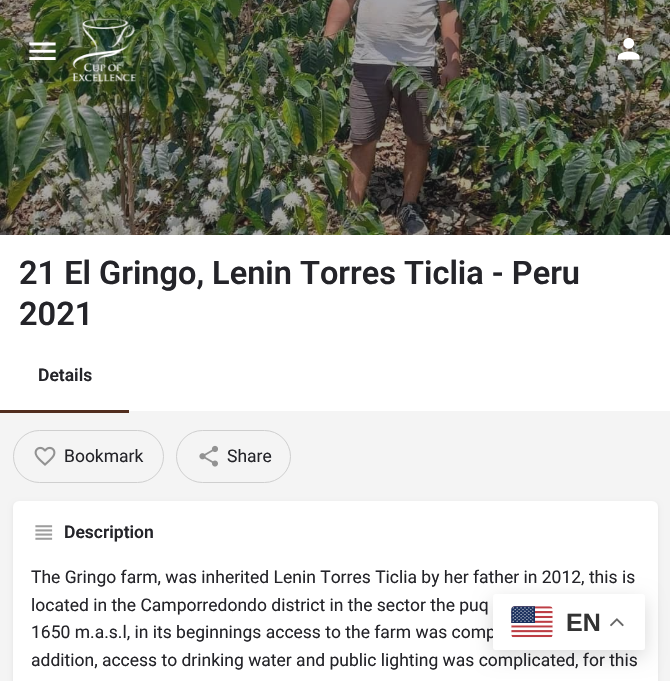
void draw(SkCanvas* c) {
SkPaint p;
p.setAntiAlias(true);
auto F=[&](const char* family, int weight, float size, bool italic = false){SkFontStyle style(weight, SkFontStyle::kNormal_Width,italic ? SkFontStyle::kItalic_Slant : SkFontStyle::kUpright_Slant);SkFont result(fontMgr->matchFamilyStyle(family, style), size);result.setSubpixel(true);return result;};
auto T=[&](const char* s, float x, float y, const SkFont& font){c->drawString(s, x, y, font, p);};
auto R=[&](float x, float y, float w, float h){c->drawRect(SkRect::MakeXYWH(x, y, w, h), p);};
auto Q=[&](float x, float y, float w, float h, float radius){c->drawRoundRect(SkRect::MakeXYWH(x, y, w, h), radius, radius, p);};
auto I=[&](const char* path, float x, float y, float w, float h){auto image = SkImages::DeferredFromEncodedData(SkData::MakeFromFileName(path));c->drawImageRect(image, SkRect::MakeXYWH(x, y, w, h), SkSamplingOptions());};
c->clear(0xfff4f4f4);
I("4.png",0,0,670,235);
I("1.png",29,42,27,18);
I("2.png",72,18,65,64);
I("3.png",617,37,23,23);
p.setColor(0xffffffff);
R(0,235,670,176);
auto f1 = F("Roboto",600,32.5);
p.setColor(0xff242429);
T("21 El Gringo, Lenin Torres Ticlia - Peru",19,284,f1);
T("2021",19,325,f1);
auto f2 = F("Roboto",600,17.5);
T("Details",38,381,f2);
p.setColor(0xff512d1e);
R(0,410,129,3);
p.setStroke(true);
p.setStrokeWidth(1);
p.setColor(0xffcfcfcf);
c->drawRoundRect(SkRect::MakeXYWH(13.5,430.5,150,52),26,26,p);
I("5.png",34,446,22,20);
auto f3 = F("Roboto",400,17.5);
p.setStroke(false);
p.setColor(0xff242429);
T("Bookmark",64,462,f3);
p.setStroke(true);
p.setColor(0xffcfcfcf);
c->drawRoundRect(SkRect::MakeXYWH(176.5,430.5,114,52),26,26,p);
I("6.png",199,445,19,22);
p.setStroke(false);
p.setColor(0xff242429);
T("Share",227,462,f3);
p.setColor(0x12000000);
p.setMaskFilter(SkMaskFilter::MakeBlur(kNormal_SkBlurStyle, 2.5));
c->drawRoundRect(SkRect::MakeXYWH(13,503,645,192),6,6,p);
p.setMaskFilter(nullptr);
p.setColor(0xffffffff);
Q(13,501,645,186,6);
I("7.png",35,525,18,15);
p.setColor(0xff242429);
T("Description",64,538,f2);
T("The Gringo farm, was inherited Lenin Torres Ticlia by her father in 2012, this is",31,583,f3);
T("located in the Camporredondo district in the sector the puq",31,611,f3);
T("1650 m.a.s.l, in its beginnings access to the farm was comp",31,638,f3);
T("addition, access to drinking water and public lighting was complicated, for this",31,666,f3);
p.setColor(0x26000000);
p.setMaskFilter(SkMaskFilter::MakeBlur(kNormal_SkBlurStyle, 9.5));
c->drawRoundRect(SkRect::MakeXYWH(493,600,152,56),2.5,2.5,p);
p.setMaskFilter(nullptr);
p.setColor(0xffffffff);
Q(493,594,152,56,2.5);
I("8.png",511,606,42,32);
auto f4 = F("Liberation Sans",700,25);
p.setColor(0xff333333);
T("EN",566,631,f4);
I("9.png",610,618,14,9);
}
